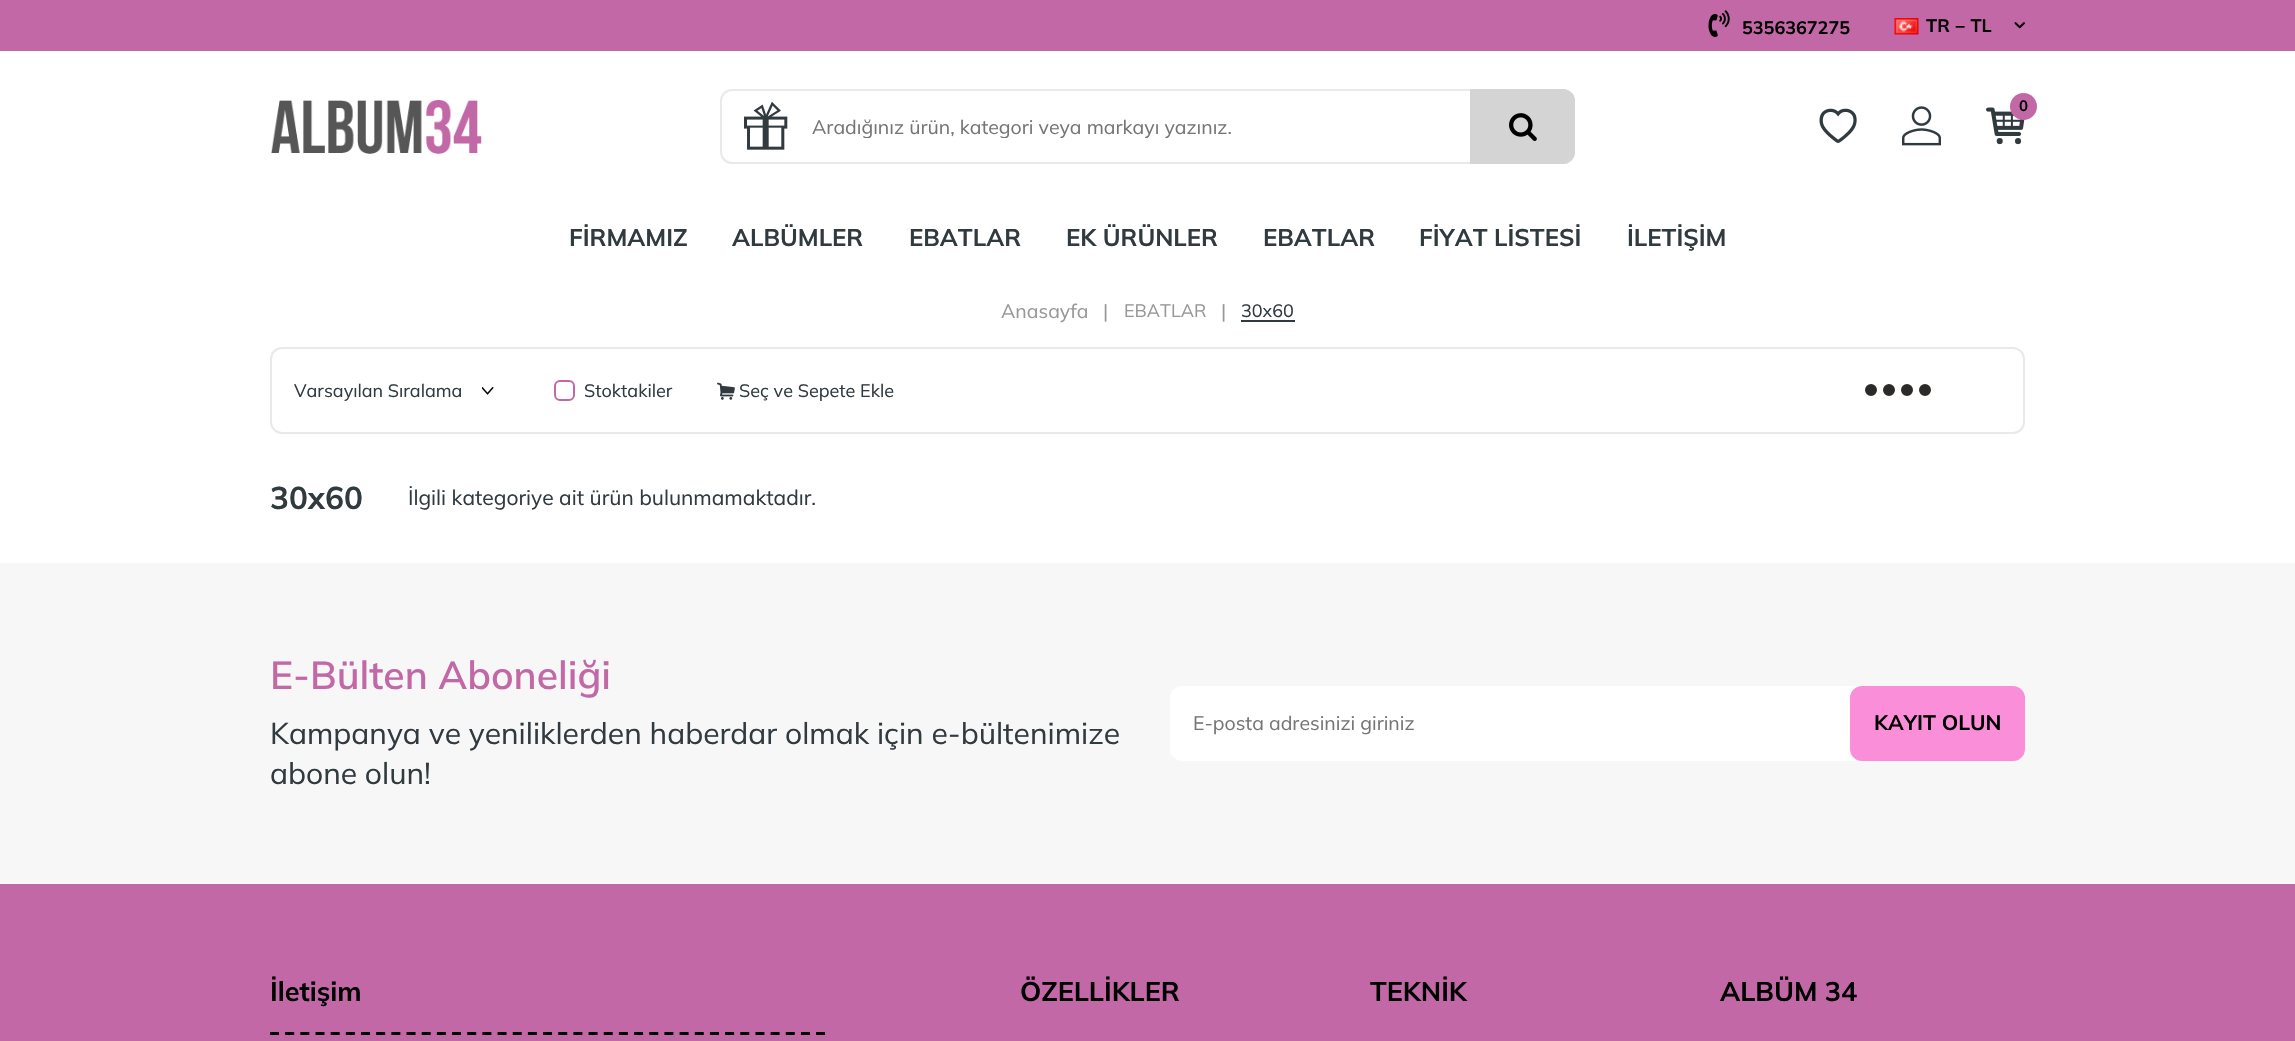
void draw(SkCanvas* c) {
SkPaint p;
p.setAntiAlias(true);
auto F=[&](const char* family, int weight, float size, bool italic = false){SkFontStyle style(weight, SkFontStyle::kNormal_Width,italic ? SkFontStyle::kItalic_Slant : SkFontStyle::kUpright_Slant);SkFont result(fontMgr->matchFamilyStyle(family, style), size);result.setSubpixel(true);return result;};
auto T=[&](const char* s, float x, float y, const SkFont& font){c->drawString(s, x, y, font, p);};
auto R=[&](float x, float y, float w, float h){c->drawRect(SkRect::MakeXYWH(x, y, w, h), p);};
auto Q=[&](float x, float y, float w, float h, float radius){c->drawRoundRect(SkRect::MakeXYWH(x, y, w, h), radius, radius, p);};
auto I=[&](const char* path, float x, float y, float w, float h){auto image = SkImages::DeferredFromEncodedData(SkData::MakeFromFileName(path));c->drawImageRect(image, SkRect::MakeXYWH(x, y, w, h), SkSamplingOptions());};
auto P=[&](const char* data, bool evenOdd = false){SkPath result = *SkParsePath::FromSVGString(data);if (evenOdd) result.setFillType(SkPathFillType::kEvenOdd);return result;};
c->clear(0xffffffff);
p.setColor(0xffc368a6);
R(0,0,2295,51);
I("1.png",1708,10,22,27);
auto f1 = F("Mulish",700,18);
p.setColor(0xff000000);
T("5356367275",1742,34,f1);
I("2.png",1894,18,25,17);
T("TR − TL",1926,32,f1);
I("3.png",2014,22,11,7);
I("4.png",271,100,211,54);
I("5.png",1819,108,38,35);
I("6.png",1902,106,39,40);
I("7.png",1986,107,39,38);
p.setColor(0xffc368a6);
c->drawCircle(2023.5,106.5,13.5,p);
auto f2 = F("Mulish",700,15);
p.setColor(0xff000000);
T("0",2019,111,f2);
p.setStroke(true);
p.setStrokeWidth(2);
p.setColor(0xffe9e9e9);
c->drawRoundRect(SkRect::MakeXYWH(721,90,853,73),11,11,p);
I("8.png",744,101,44,49);
c->save();
c->clipRect(SkRect::MakeXYWH(812,114,637,24));
auto f3 = F("Mulish",400,19.5);
p.setStroke(false);
p.setColor(0xff757575);
T("Aradığınız ürün, kategori veya markayı yazınız.",812,134,f3);
c->restore();
p.setColor(0xffd4d4d4);
c->drawPath(P("M1471 90h92c6 0 11 5 11 11v51c0 6-5 11-11 11h-92z"),p);
p.setStroke(true);
c->drawPath(P("M1471 90h92c6 0 11 5 11 11v51c0 6-5 11-11 11h-92z"),p);
I("9.png",1509,113,28,28);
auto f4 = F("Mulish",700,24);
p.setStroke(false);
p.setColor(0xff303a3f);
T("FİRMAMIZ",569,246,f4);
T("ALBÜMLER",732,246,f4);
T("EBATLAR",909,246,f4);
T("EK ÜRÜNLER",1066,246,f4);
T("EBATLAR",1263,246,f4);
T("FİYAT LİSTESİ",1419,246,f4);
T("İLETİŞİM",1627,246,f4);
p.setColor(0xff979797);
T("Anasayfa",1001,318,f3);
T("|",1103,318,f3);
auto f5 = F("Mulish",400,18);
T("EBATLAR",1124,317,f5);
T("|",1221,318,f3);
p.setColor(0xff303a3f);
T("30x60",1241,317,f5);
R(1241,320,54,2);
p.setStroke(true);
p.setColor(0xffe9e9e9);
c->drawRoundRect(SkRect::MakeXYWH(271,348,1753,85),11,11,p);
I("10.png",482,387,12,8);
p.setStroke(false);
p.setColor(0xff303a3f);
T("Varsayılan Sıralama",294,397,f5);
p.setStroke(true);
p.setColor(0xffc368a6);
c->drawRoundRect(SkRect::MakeXYWH(555,381,19,19),5,5,p);
p.setStroke(false);
p.setColor(0xff303a3f);
T("Stoktakiler",584,397,f5);
I("11.png",717,382,18,18);
T("Seç ve Sepete Ekle",739,397,f5);
p.setColor(0xff2c2a28);
c->drawCircle(1871,390,5,p);
p.setStroke(true);
c->drawCircle(1871,390,5,p);
p.setStroke(false);
c->drawCircle(1889,390,5,p);
p.setStroke(true);
c->drawCircle(1889,390,5,p);
p.setStroke(false);
c->drawCircle(1907,390,5,p);
p.setStroke(true);
c->drawCircle(1907,390,5,p);
p.setStroke(false);
c->drawCircle(1925,390,5,p);
p.setStroke(true);
c->drawCircle(1925,390,5,p);
auto f6 = F("Mulish",700,31.5);
p.setStroke(false);
p.setColor(0xff303a3f);
T("30x60",270,509,f6);
auto f7 = F("Mulish",400,21);
T("İlgili kategoriye ait ürün bulunmamaktadır.",408,505,f7);
p.setColor(0xfff7f7f7);
R(0,563,2295,321);
auto f8 = F("Mulish",600,39);
p.setColor(0xffc368a6);
T("E-Bülten Aboneliği",270,689,f8);
auto f9 = F("Mulish",400,30);
p.setColor(0xff303a3f);
T("Kampanya ve yeniliklerden haberdar olmak için e-bültenimize",270,744,f9);
T("abone olun!",270,784,f9);
p.setColor(0xffffffff);
Q(1170,686,855,75,12);
p.setColor(0xff757575);
T("E-posta adresinizi giriniz",1193,730,f3);
p.setColor(0xfffb8ed8);
c->drawRoundRect(SkRect::MakeXYWH(1851,687,173,73),11,11,p);
p.setStroke(true);
c->drawRoundRect(SkRect::MakeXYWH(1851,687,173,73),11,11,p);
auto f10 = F("Mulish",700,21);
p.setStroke(false);
p.setColor(0xff000000);
T("KAYIT OLUN",1874,730,f10);
p.setColor(0xffc368a6);
R(0,884,2295,157);
p.setStroke(true);
p.setStrokeWidth(3);
p.setColor(0xff000000);
p.setPathEffect(SkDashPathEffect::Make({{9,6.17f}}, 0));
c->drawPath(P("M270 1033.5h555"),p);
p.setPathEffect(nullptr);
auto f11 = F("Mulish",700,27);
p.setStroke(false);
T("İletişim",270,1001,f11);
T("ÖZELLİKLER",1020,1001,f11);
T("TEKNİK",1370,1001,f11);
T("ALBÜM 34",1720,1001,f11);
}
